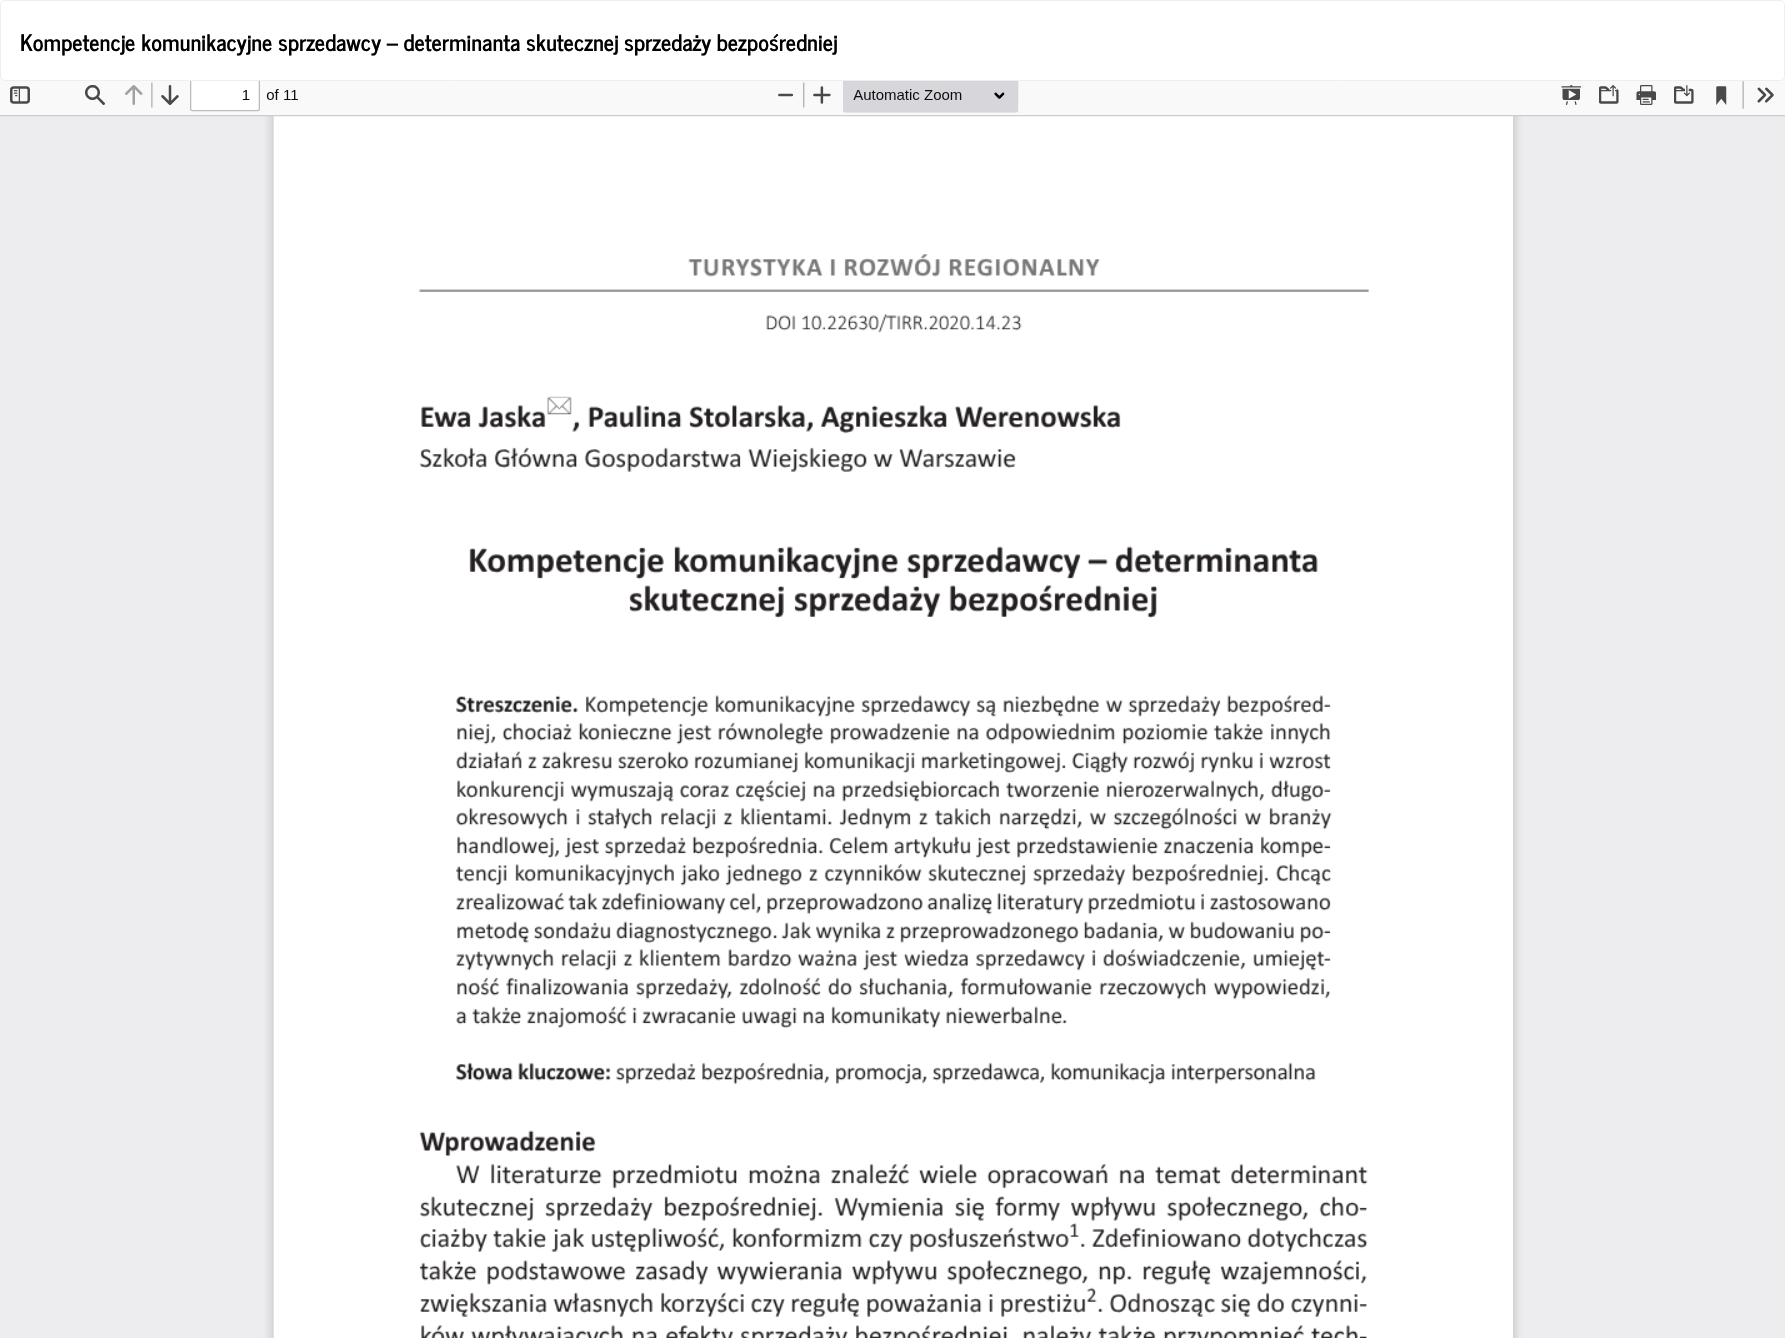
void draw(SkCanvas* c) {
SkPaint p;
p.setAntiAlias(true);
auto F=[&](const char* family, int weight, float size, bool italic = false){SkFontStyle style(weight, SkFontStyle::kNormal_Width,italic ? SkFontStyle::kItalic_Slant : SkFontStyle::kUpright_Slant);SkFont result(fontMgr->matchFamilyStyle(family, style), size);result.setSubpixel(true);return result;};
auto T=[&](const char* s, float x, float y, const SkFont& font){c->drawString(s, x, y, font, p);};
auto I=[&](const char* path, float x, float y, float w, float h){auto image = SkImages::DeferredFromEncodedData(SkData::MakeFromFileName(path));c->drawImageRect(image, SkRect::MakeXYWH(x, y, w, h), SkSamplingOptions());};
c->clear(0xffffffff);
I("1.png",0,76,1785,1262);
p.setColor(0xffffffff);
c->drawRoundRect(SkRect::MakeXYWH(.5,.5,1784,80),4.5,4.5,p);
p.setStroke(true);
p.setStrokeWidth(1);
p.setColor(0xffeeeeee);
c->drawRoundRect(SkRect::MakeXYWH(.5,.5,1784,80),4.5,4.5,p);
auto f1 = F("News Cycle",700,22.5);
p.setStroke(false);
p.setColor(0xff000000);
T("Kompetencje komunikacyjne sprzedawcy – determinanta skutecznej sprzedaży bezpośredniej",20,51,f1);
}
